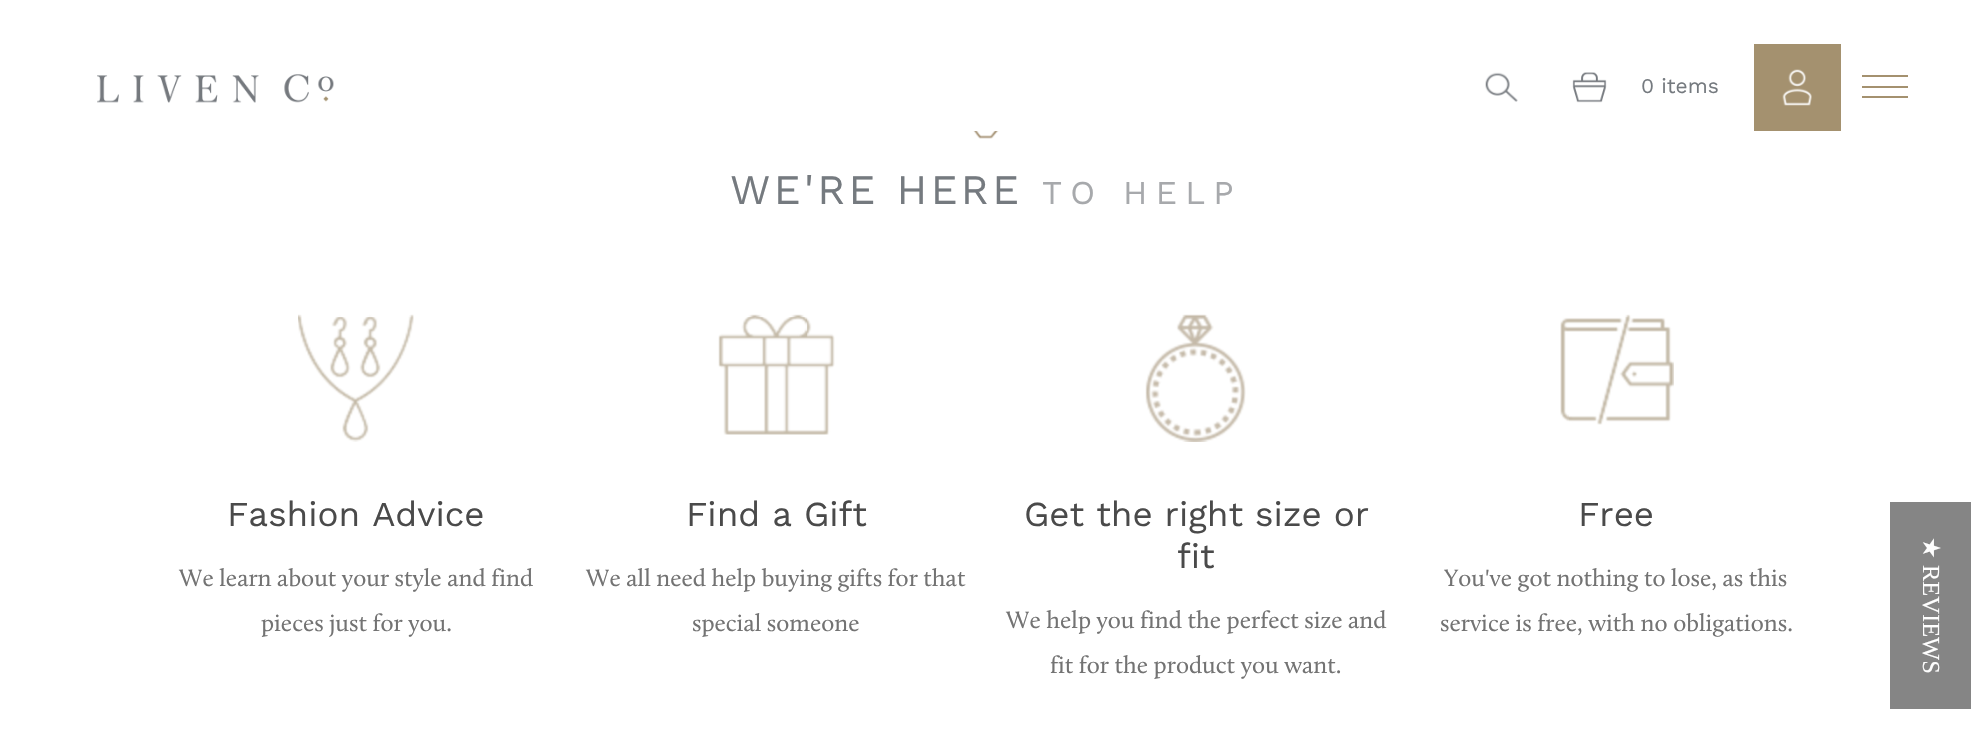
void draw(SkCanvas* c) {
SkPaint p;
p.setAntiAlias(true);
auto F=[&](const char* family, int weight, float size, bool italic = false){SkFontStyle style(weight, SkFontStyle::kNormal_Width,italic ? SkFontStyle::kItalic_Slant : SkFontStyle::kUpright_Slant);SkFont result(fontMgr->matchFamilyStyle(family, style), size);result.setSubpixel(true);return result;};
auto T=[&](const char* s, float x, float y, const SkFont& font){c->drawString(s, x, y, font, p);};
auto L=[&](const char* s, float x, float y, const SkFont& font, const SkPaint& ink, float letter, float word){std::vector<SkGlyphID> glyphs(font.countText(s, strlen(s), SkTextEncoding::kUTF8));std::vector<float> xs(glyphs.size());font.textToGlyphs(s, strlen(s), SkTextEncoding::kUTF8, glyphs);font.getXPos(glyphs, xs, x);float extra = 0;for (size_t i = 0; i < glyphs.size(); i++) {xs[i] += extra;extra += letter + word * (glyphs[i] == font.unicharToGlyph(' '));}c->drawTextBlob(SkTextBlob::MakeFromPosHGlyphs(glyphs, xs, y, font), 0, 0, ink);};
auto R=[&](float x, float y, float w, float h){c->drawRect(SkRect::MakeXYWH(x, y, w, h), p);};
auto I=[&](const char* path, float x, float y, float w, float h){auto image = SkImages::DeferredFromEncodedData(SkData::MakeFromFileName(path));c->drawImageRect(image, SkRect::MakeXYWH(x, y, w, h), SkSamplingOptions());};
c->clear(0xffffffff);
I("1.png",97,74,237,29);
I("2.png",1485,72,33,30);
I("3.png",1572,72,35,31);
auto f1 = F("Work Sans",400,21);
p.setColor(0xff757a7f);
T("0 items",1641,93,f1);
p.setColor(0xffa4916f);
R(1754,44,87,87);
I("4.png",1782,69,30,37);
R(1862,86,46,2);
R(1862,75,46,2);
R(1862,96,46,2);
I("5.png",973,131,26,8);
auto f2 = F("Work Sans",400,42);
p.setColor(0xff757a7f);
L("WE'RE HERE",730,204,f2,p,3.4,0);
auto f3 = F("Work Sans",400,33.25);
p.setColor(0xffa7a9ac);
L("TO HELP",1042,204,f3,p,8.25,0);
I("6.png",298,314,116,128);
auto f4 = F("Work Sans",400,35);
p.setColor(0xff4a4a4a);
T("Fashion Advice",227,526,f4);
auto f5 = F("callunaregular",400,24.5);
p.setColor(0xff737373);
T("We learn about your style and find",179,586,f5);
T("pieces just for you.",261,631,f5);
I("7.png",718,314,117,121);
p.setColor(0xff4a4a4a);
T("Find a Gift",686,526,f4);
p.setColor(0xff737373);
T("We all need help buying gifts for that",586,586,f5);
T("special someone",692,631,f5);
I("8.png",1145,314,101,128);
p.setColor(0xff4a4a4a);
T("Get the right size or",1024,526,f4);
T("fit",1177,568,f4);
p.setColor(0xff737373);
T("We help you find the perfect size and",1006,628,f5);
T("fit for the product you want.",1050,673,f5);
I("9.png",1560,314,114,111);
p.setColor(0xff4a4a4a);
T("Free",1578,526,f4);
p.setColor(0xff737373);
T("You've got nothing to lose, as this",1444,586,f5);
T("service is free, with no obligations.",1440,631,f5);
p.setColor(0xff858585);
R(1890,502,81,207);
auto f6 = F("DejaVu Sans",400,24.5);
p.setColor(0xfffefefe);
c->save();
c->rotate(90,1923,537);
T("★",1923,537,f6);
c->restore();
auto f7 = F("Liberation Serif",400,24.5);
c->save();
c->rotate(90,1923,565);
T("REVIEWS",1923,565,f7);
c->restore();
}
